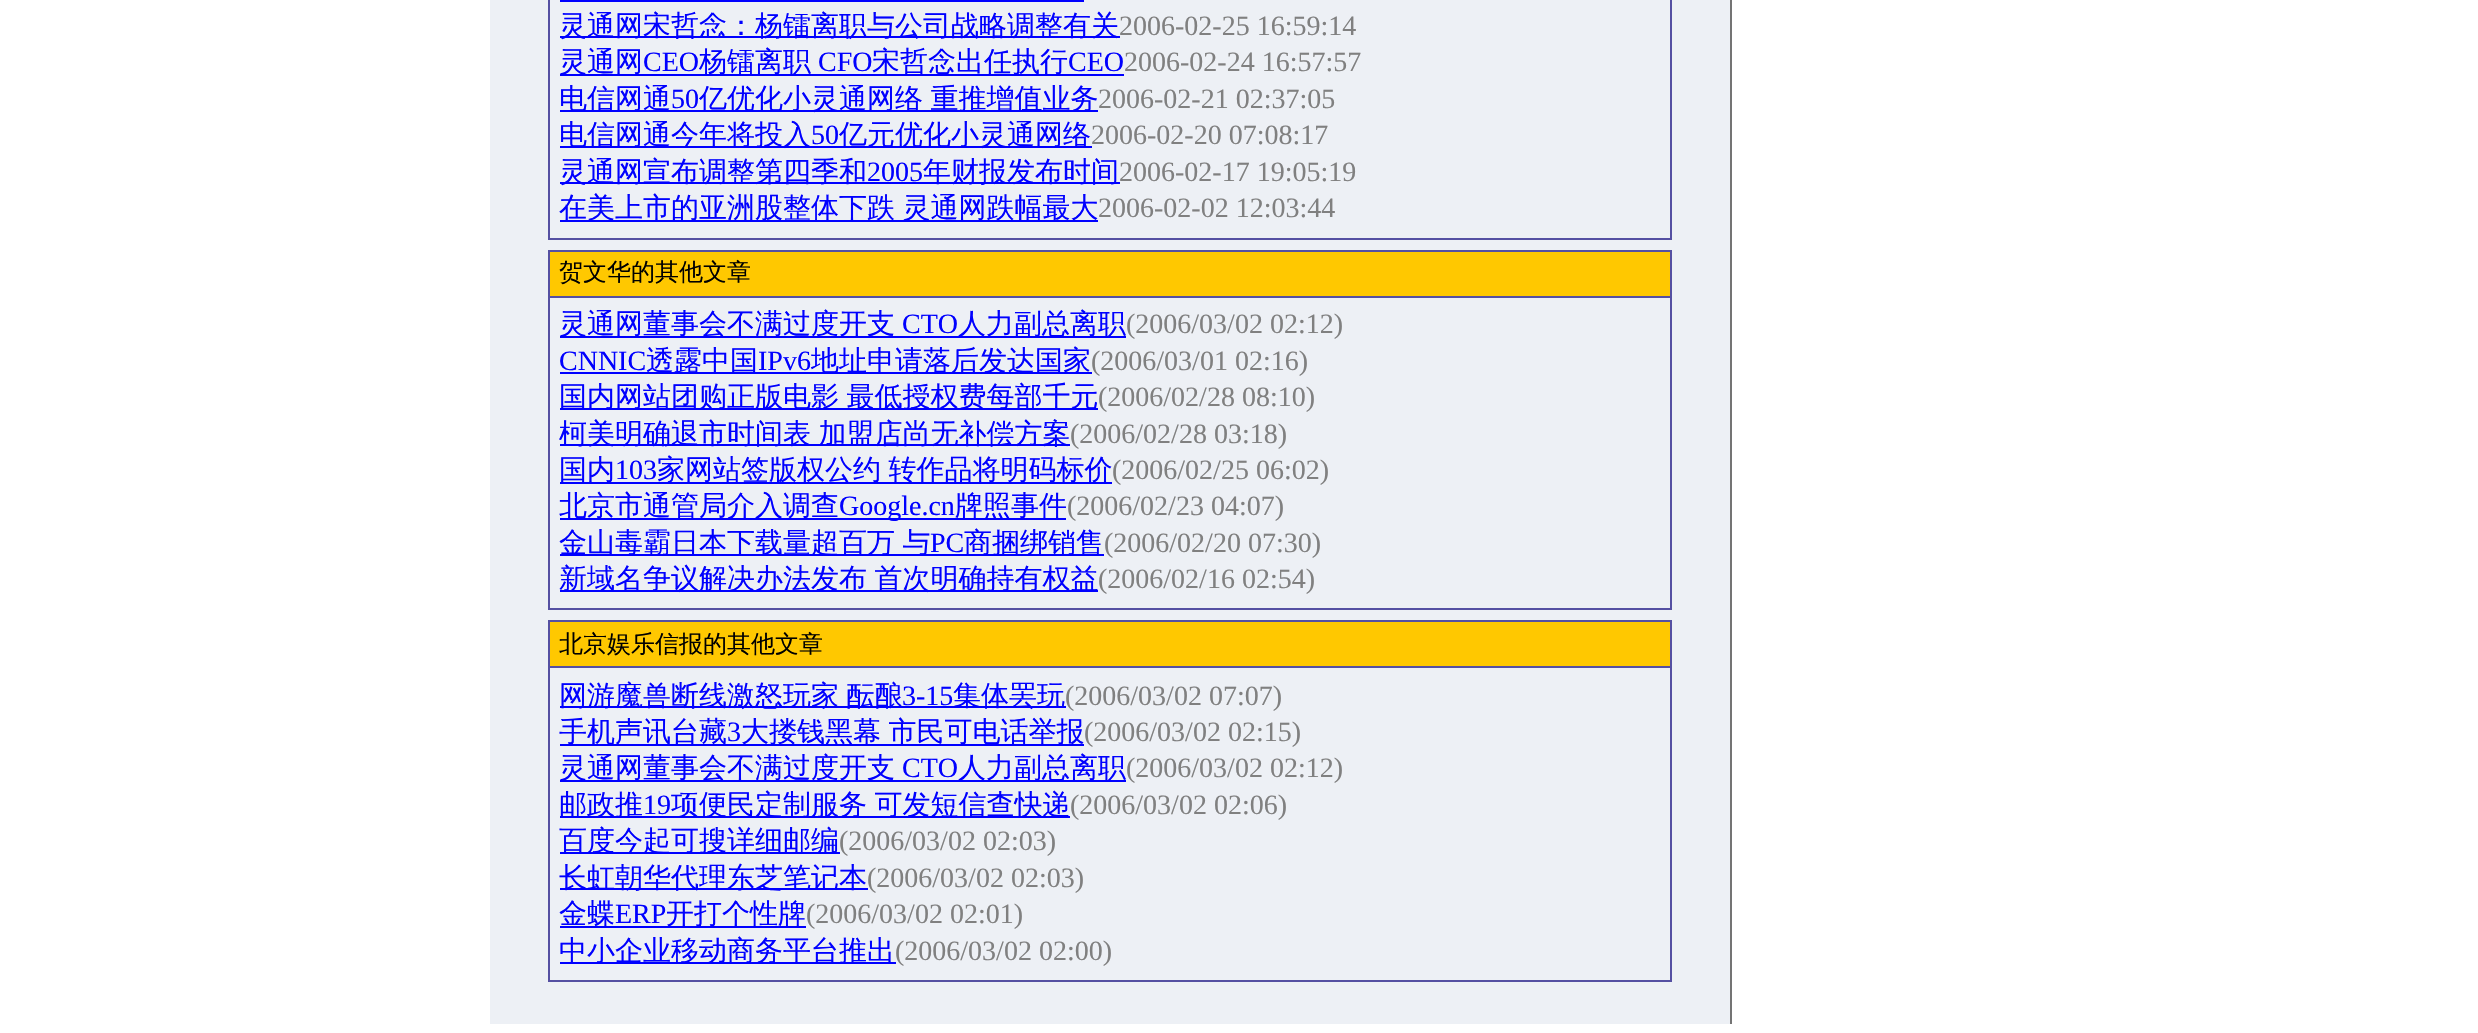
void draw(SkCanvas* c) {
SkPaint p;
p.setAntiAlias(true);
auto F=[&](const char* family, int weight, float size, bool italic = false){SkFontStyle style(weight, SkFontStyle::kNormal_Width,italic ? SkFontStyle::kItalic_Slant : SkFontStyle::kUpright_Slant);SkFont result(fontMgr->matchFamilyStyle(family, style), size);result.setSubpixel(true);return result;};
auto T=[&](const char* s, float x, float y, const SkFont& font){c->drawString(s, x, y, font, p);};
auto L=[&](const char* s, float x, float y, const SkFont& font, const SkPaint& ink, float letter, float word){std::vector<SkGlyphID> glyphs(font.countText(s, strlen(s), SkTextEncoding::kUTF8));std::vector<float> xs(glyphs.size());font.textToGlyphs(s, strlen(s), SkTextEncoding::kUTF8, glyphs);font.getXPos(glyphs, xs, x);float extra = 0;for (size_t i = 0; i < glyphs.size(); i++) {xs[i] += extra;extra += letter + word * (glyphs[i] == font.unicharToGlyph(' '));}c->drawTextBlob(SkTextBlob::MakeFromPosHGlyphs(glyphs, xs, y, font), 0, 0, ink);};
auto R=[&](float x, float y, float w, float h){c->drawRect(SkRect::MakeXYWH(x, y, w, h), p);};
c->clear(0xffffffff);
p.setColor(0xffedf0f5);
R(490,0,1240,1024);
p.setColor(0xff5550a2);
R(548,0,1124,240);
p.setColor(0xffedf0f5);
R(550,0,1120,238);
p.setColor(0xff0000ff);
R(560,0,524,2);
R(560,36,560,2);
auto f1 = F("WenQuanYi Zen Hei",500,28);
T("灵通网宋哲念：杨镭离职与公司战略调整有关",559,35,f1);
auto f2 = F("Liberation Serif",400,28);
p.setColor(0xff808080);
T("2006-02-25 16:59:14",1119,35,f2);
p.setColor(0xff0000ff);
R(560,74,564,2);
T("灵通网",559,71,f1);
T("CEO",643,71,f2);
T("杨镭离职",699,71,f1);
T("CFO",818,71,f2);
T("宋哲念出任执行",872,71,f1);
T("CEO",1068,71,f2);
p.setColor(0xff808080);
T("2006-02-24 16:57:57",1124,71,f2);
p.setColor(0xff0000ff);
R(560,110,538,2);
T("电信网通",559,108,f1);
T("50",671,108,f2);
L("亿优化小灵通网络 重推增值业务",699,108,f1,p,0,-1);
p.setColor(0xff808080);
T("2006-02-21 02:37:05",1098,108,f2);
p.setColor(0xff0000ff);
R(560,146,532,2);
T("电信网通今年将投入",559,144,f1);
T("50",811,144,f2);
T("亿元优化小灵通网络",839,144,f1);
p.setColor(0xff808080);
T("2006-02-20 07:08:17",1091,144,f2);
p.setColor(0xff0000ff);
R(560,182,560,2);
T("灵通网宣布调整第四季和",559,181,f1);
T("2005",867,181,f2);
T("年财报发布时间",923,181,f1);
p.setColor(0xff808080);
T("2006-02-17 19:05:19",1119,181,f2);
p.setColor(0xff0000ff);
R(560,220,538,2);
L("在美上市的亚洲股整体下跌 灵通网跌幅最大",559,217,f1,p,0,-1);
p.setColor(0xff808080);
T("2006-02-02 12:03:44",1098,217,f2);
p.setColor(0xff5550a2);
R(548,250,1124,360);
p.setColor(0xffffc800);
R(550,252,1120,44);
auto f3 = F("WenQuanYi Zen Hei",500,24);
p.setColor(0xff000000);
T("贺文华的其他文章",559,280,f3);
p.setColor(0xffedf0f5);
R(550,298,1120,310);
p.setColor(0xff0000ff);
R(560,336,566,2);
T("灵通网董事会不满过度开支",559,333,f1);
T("CTO",902,333,f2);
T("人力副总离职",958,333,f1);
p.setColor(0xff808080);
T("(2006/03/02 02:12)",1126,333,f2);
p.setColor(0xff0000ff);
T("CNNIC",559,370,f2);
R(560,372,532,2);
T("透露中国",646,370,f1);
T("IPv6",758,370,f2);
T("地址申请落后发达国家",811,370,f1);
p.setColor(0xff808080);
T("(2006/03/01 02:16)",1091,370,f2);
p.setColor(0xff0000ff);
R(560,408,538,2);
L("国内网站团购正版电影 最低授权费每部千元",559,406,f1,p,0,-1);
p.setColor(0xff808080);
T("(2006/02/28 08:10)",1098,406,f2);
p.setColor(0xff0000ff);
R(560,444,510,2);
L("柯美明确退市时间表 加盟店尚无补偿方案",559,443,f1,p,0,-1);
p.setColor(0xff808080);
T("(2006/02/28 03:18)",1070,443,f2);
p.setColor(0xff0000ff);
R(560,482,552,2);
T("国内",559,479,f1);
T("103",615,479,f2);
L("家网站签版权公约 转作品将明码标价",657,479,f1,p,0,-1);
p.setColor(0xff808080);
T("(2006/02/25 06:02)",1112,479,f2);
p.setColor(0xff0000ff);
R(560,518,506,2);
T("北京市通管局介入调查",559,515,f1);
T("Google.cn",839,515,f2);
T("牌照事件",955,515,f1);
p.setColor(0xff808080);
T("(2006/02/23 04:07)",1067,515,f2);
p.setColor(0xff0000ff);
R(560,554,544,2);
L("金山毒霸日本下载量超百万 与",559,552,f1,p,0,-1);
T("PC",930,552,f2);
T("商捆绑销售",964,552,f1);
p.setColor(0xff808080);
T("(2006/02/20 07:30)",1104,552,f2);
p.setColor(0xff0000ff);
R(560,590,538,2);
L("新域名争议解决办法发布 首次明确持有权益",559,588,f1,p,0,-1);
p.setColor(0xff808080);
T("(2006/02/16 02:54)",1098,588,f2);
p.setColor(0xff5550a2);
R(548,620,1124,362);
p.setColor(0xffffc800);
R(550,622,1120,44);
p.setColor(0xff000000);
T("北京娱乐信报的其他文章",559,652,f3);
p.setColor(0xffedf0f5);
R(550,668,1120,312);
p.setColor(0xff0000ff);
R(560,706,506,2);
L("网游魔兽断线激怒玩家 酝酿",559,705,f1,p,0,-1);
T("3-15",902,705,f2);
T("集体罢玩",953,705,f1);
p.setColor(0xff808080);
T("(2006/03/02 07:07)",1065,705,f2);
p.setColor(0xff0000ff);
R(560,744,524,2);
T("手机声讯台藏",559,741,f1);
T("3",727,741,f2);
L("大搂钱黑幕 市民可电话举报",741,741,f1,p,0,-1);
p.setColor(0xff808080);
T("(2006/03/02 02:15)",1084,741,f2);
p.setColor(0xff0000ff);
R(560,780,566,2);
T("灵通网董事会不满过度开支",559,777,f1);
T("CTO",902,777,f2);
T("人力副总离职",958,777,f1);
p.setColor(0xff808080);
T("(2006/03/02 02:12)",1126,777,f2);
p.setColor(0xff0000ff);
R(560,816,510,2);
T("邮政推",559,814,f1);
T("19",643,814,f2);
L("项便民定制服务 可发短信查快递",671,814,f1,p,0,-1);
p.setColor(0xff808080);
T("(2006/03/02 02:06)",1070,814,f2);
p.setColor(0xff0000ff);
R(560,852,280,2);
T("百度今起可搜详细邮编",559,850,f1);
p.setColor(0xff808080);
T("(2006/03/02 02:03)",839,850,f2);
p.setColor(0xff0000ff);
R(560,888,308,2);
T("长虹朝华代理东芝笔记本",559,887,f1);
p.setColor(0xff808080);
T("(2006/03/02 02:03)",867,887,f2);
p.setColor(0xff0000ff);
R(560,926,246,2);
T("金蝶",559,923,f1);
T("ERP",615,923,f2);
T("开打个性牌",666,923,f1);
p.setColor(0xff808080);
T("(2006/03/02 02:01)",806,923,f2);
p.setColor(0xff0000ff);
R(560,962,336,2);
T("中小企业移动商务平台推出",559,960,f1);
p.setColor(0xff808080);
T("(2006/03/02 02:00)",895,960,f2);
p.setColor(0xff747474);
R(1730,0,2,1024);
}
